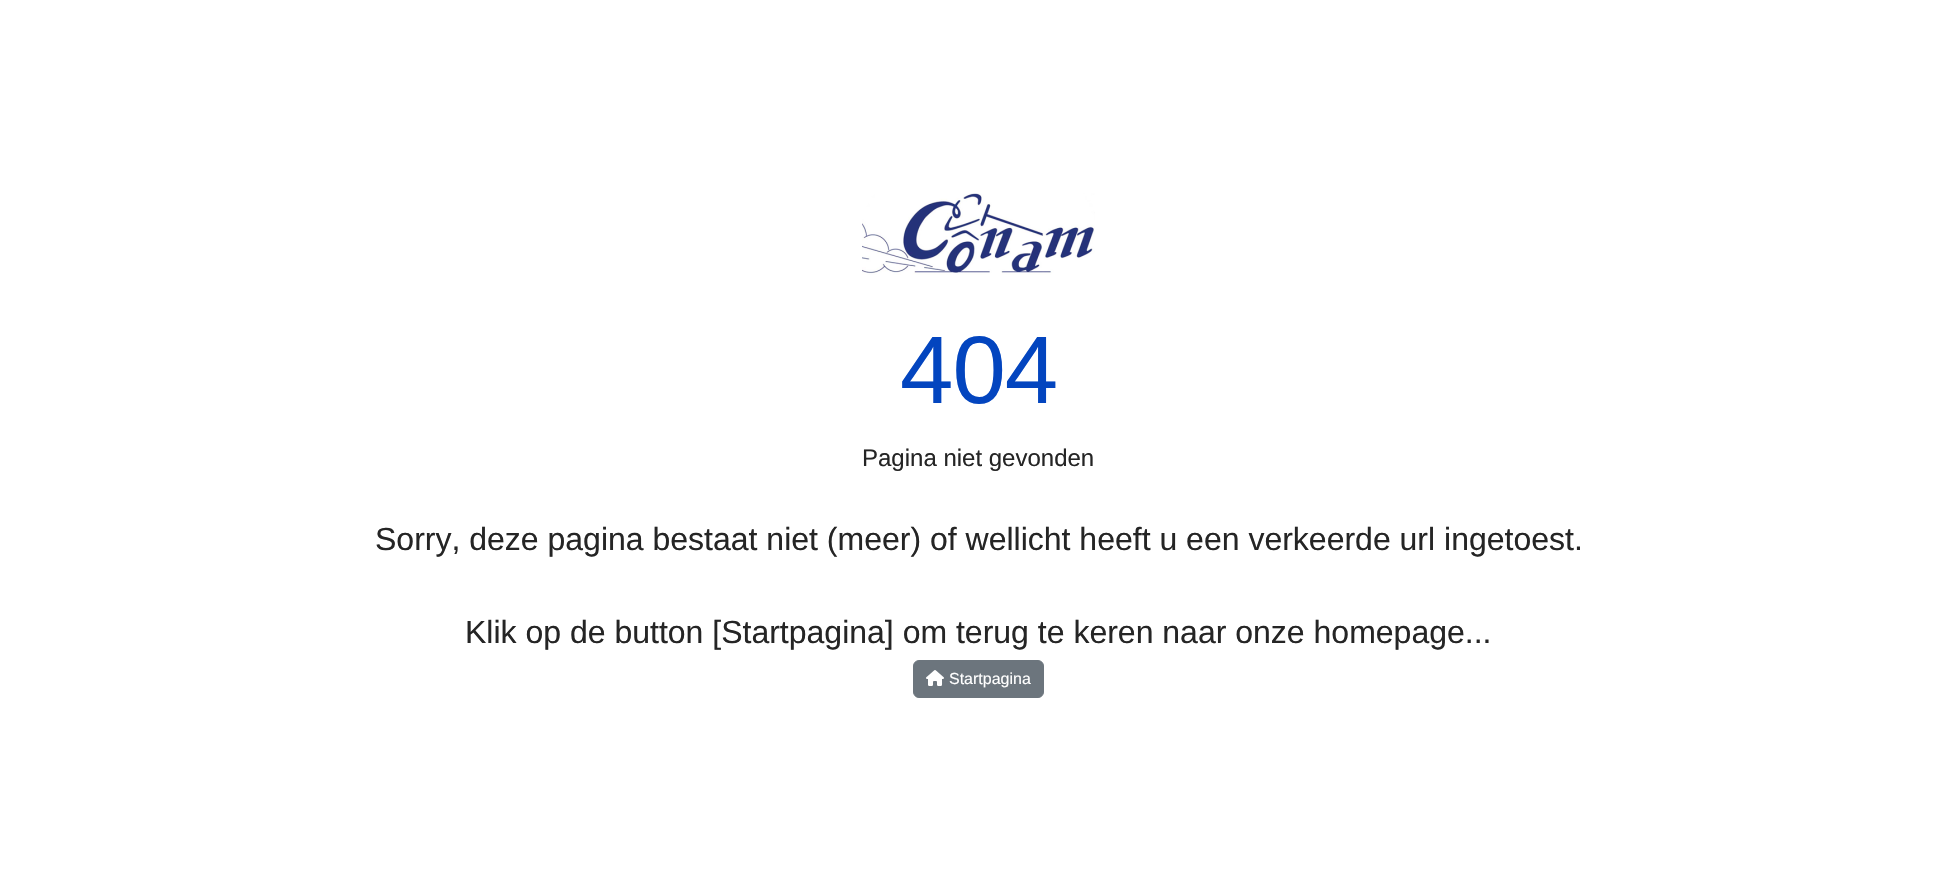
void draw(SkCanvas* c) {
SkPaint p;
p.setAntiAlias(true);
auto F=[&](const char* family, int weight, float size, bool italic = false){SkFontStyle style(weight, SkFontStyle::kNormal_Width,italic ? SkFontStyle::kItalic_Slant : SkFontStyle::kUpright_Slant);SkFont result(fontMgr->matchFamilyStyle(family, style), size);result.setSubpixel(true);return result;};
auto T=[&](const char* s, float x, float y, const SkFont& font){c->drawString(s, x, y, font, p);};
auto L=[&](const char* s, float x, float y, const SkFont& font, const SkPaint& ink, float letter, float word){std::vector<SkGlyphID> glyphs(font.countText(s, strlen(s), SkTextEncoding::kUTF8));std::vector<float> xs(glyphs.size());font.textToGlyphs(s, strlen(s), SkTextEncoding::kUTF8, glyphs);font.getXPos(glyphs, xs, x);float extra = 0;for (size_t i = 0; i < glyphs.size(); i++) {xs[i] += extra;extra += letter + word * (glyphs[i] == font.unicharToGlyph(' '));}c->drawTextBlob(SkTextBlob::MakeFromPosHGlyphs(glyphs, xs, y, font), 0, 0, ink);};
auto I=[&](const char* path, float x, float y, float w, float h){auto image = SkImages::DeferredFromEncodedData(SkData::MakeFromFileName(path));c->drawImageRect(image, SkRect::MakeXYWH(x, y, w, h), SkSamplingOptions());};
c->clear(0xffffffff);
I("1.png",862,193,233,82);
auto f1 = F("Liberation Sans",400,96);
p.setColor(0xff0345bf);
L("404",900,403,f1,p,-1,0);
auto f2 = F("Liberation Sans",400,24);
p.setColor(0xff252525);
T("Pagina niet gevonden",862,466,f2);
auto f3 = F("Liberation Sans",400,32);
T("Sorry, deze pagina bestaat niet (meer) of wellicht heeft u een verkeerde url ingetoest.",375,550,f3);
T("Klik op de button [Startpagina] om terug te keren naar onze homepage...",465,643,f3);
p.setColor(0xff6c757d);
c->drawRoundRect(SkRect::MakeXYWH(913.5,660.5,130,37),5.5,5.5,p);
p.setStroke(true);
p.setStrokeWidth(1);
c->drawRoundRect(SkRect::MakeXYWH(913.5,660.5,130,37),5.5,5.5,p);
I("2.png",926,670,18,16);
auto f4 = F("Liberation Sans",400,16);
p.setStroke(false);
p.setColor(0xffffffff);
T("Startpagina",949,684,f4);
}
